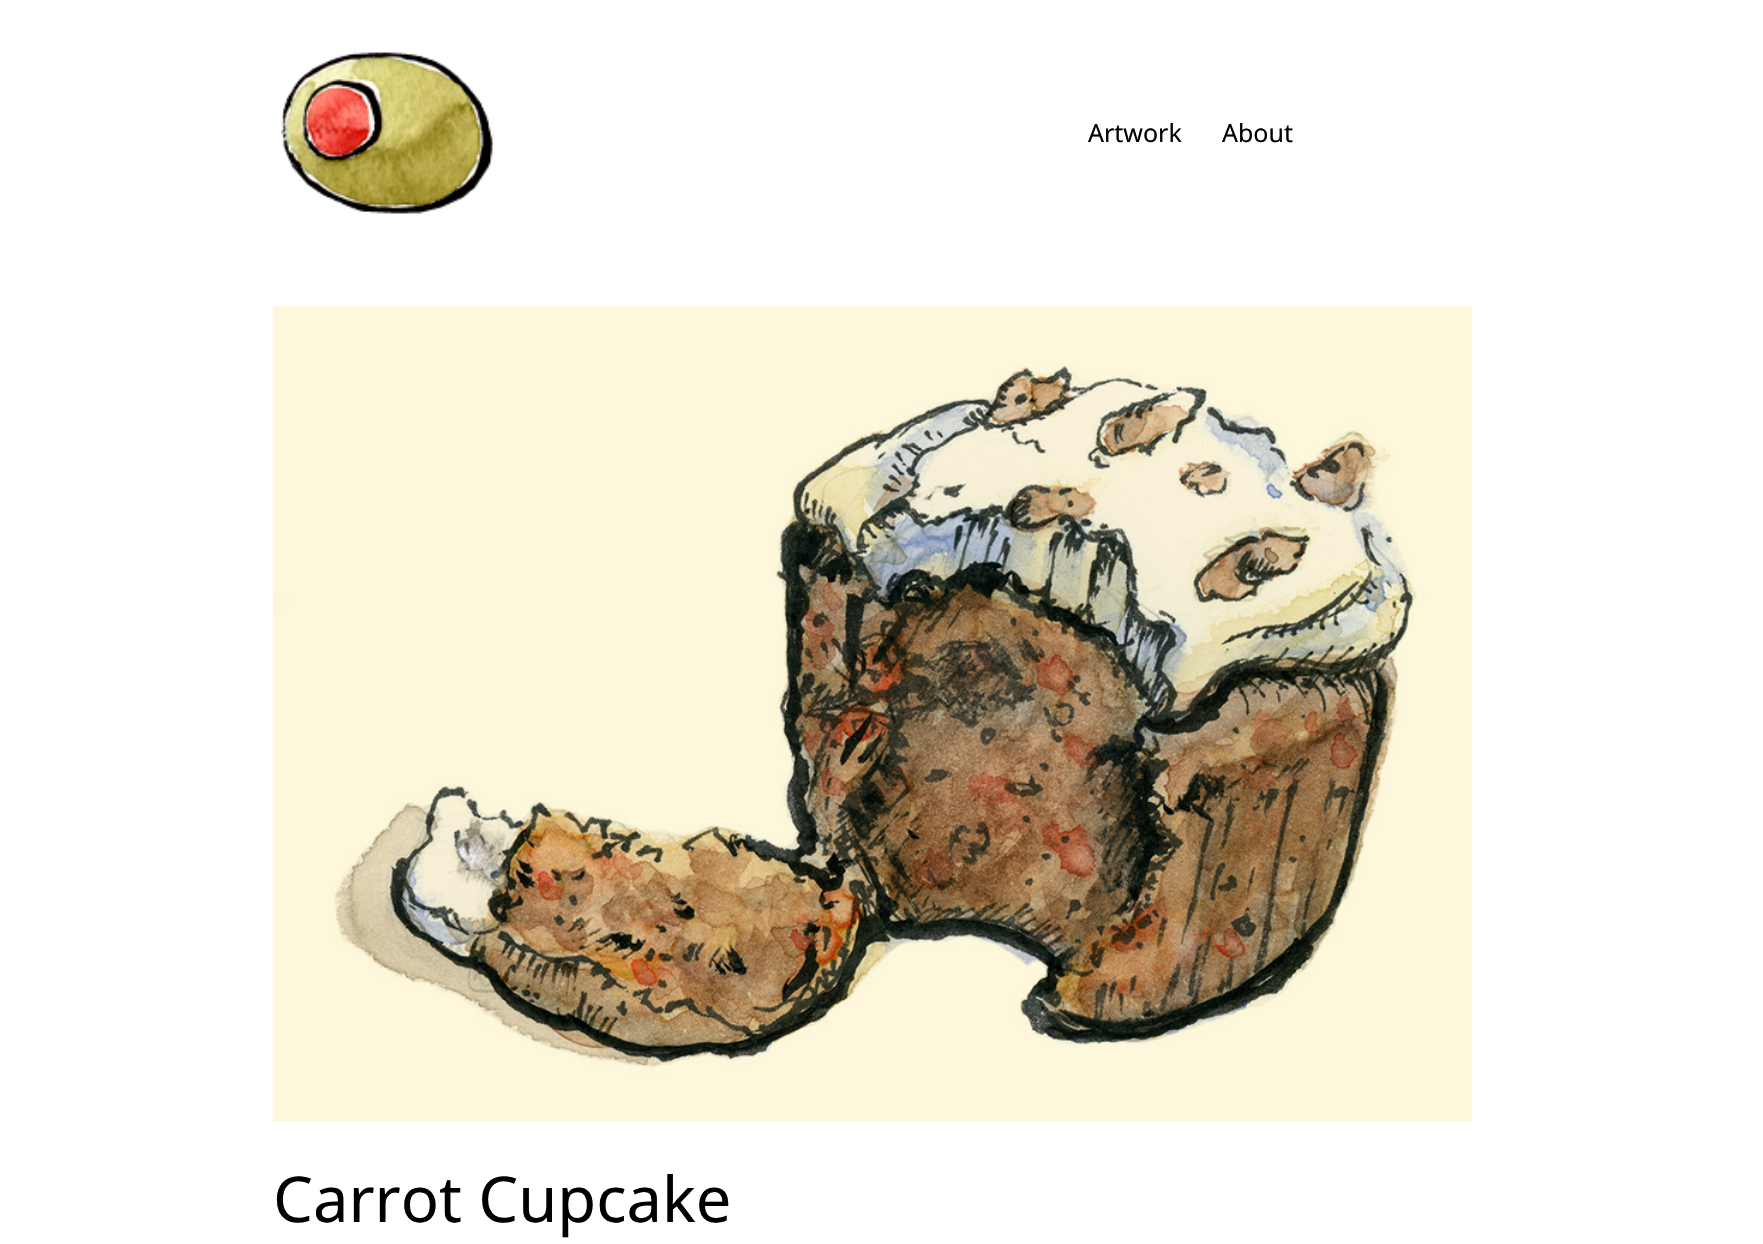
void draw(SkCanvas* c) {
SkPaint p;
p.setAntiAlias(true);
auto F=[&](const char* family, int weight, float size, bool italic = false){SkFontStyle style(weight, SkFontStyle::kNormal_Width,italic ? SkFontStyle::kItalic_Slant : SkFontStyle::kUpright_Slant);SkFont result(fontMgr->matchFamilyStyle(family, style), size);result.setSubpixel(true);return result;};
auto T=[&](const char* s, float x, float y, const SkFont& font){c->drawString(s, x, y, font, p);};
auto I=[&](const char* path, float x, float y, float w, float h){auto image = SkImages::DeferredFromEncodedData(SkData::MakeFromFileName(path));c->drawImageRect(image, SkRect::MakeXYWH(x, y, w, h), SkSamplingOptions());};
c->clear(0xffffffff);
I("1.png",281,52,213,162);
auto f1 = F("Noto Sans",400,25);
p.setColor(0xff000000);
T("Artwork",1088,142,f1);
T("About",1222,142,f1);
I("2.png",272,306,1201,815);
auto f2 = F("Noto Sans",400,63.25);
T("Carrot Cupcake",273,1222,f2);
}
